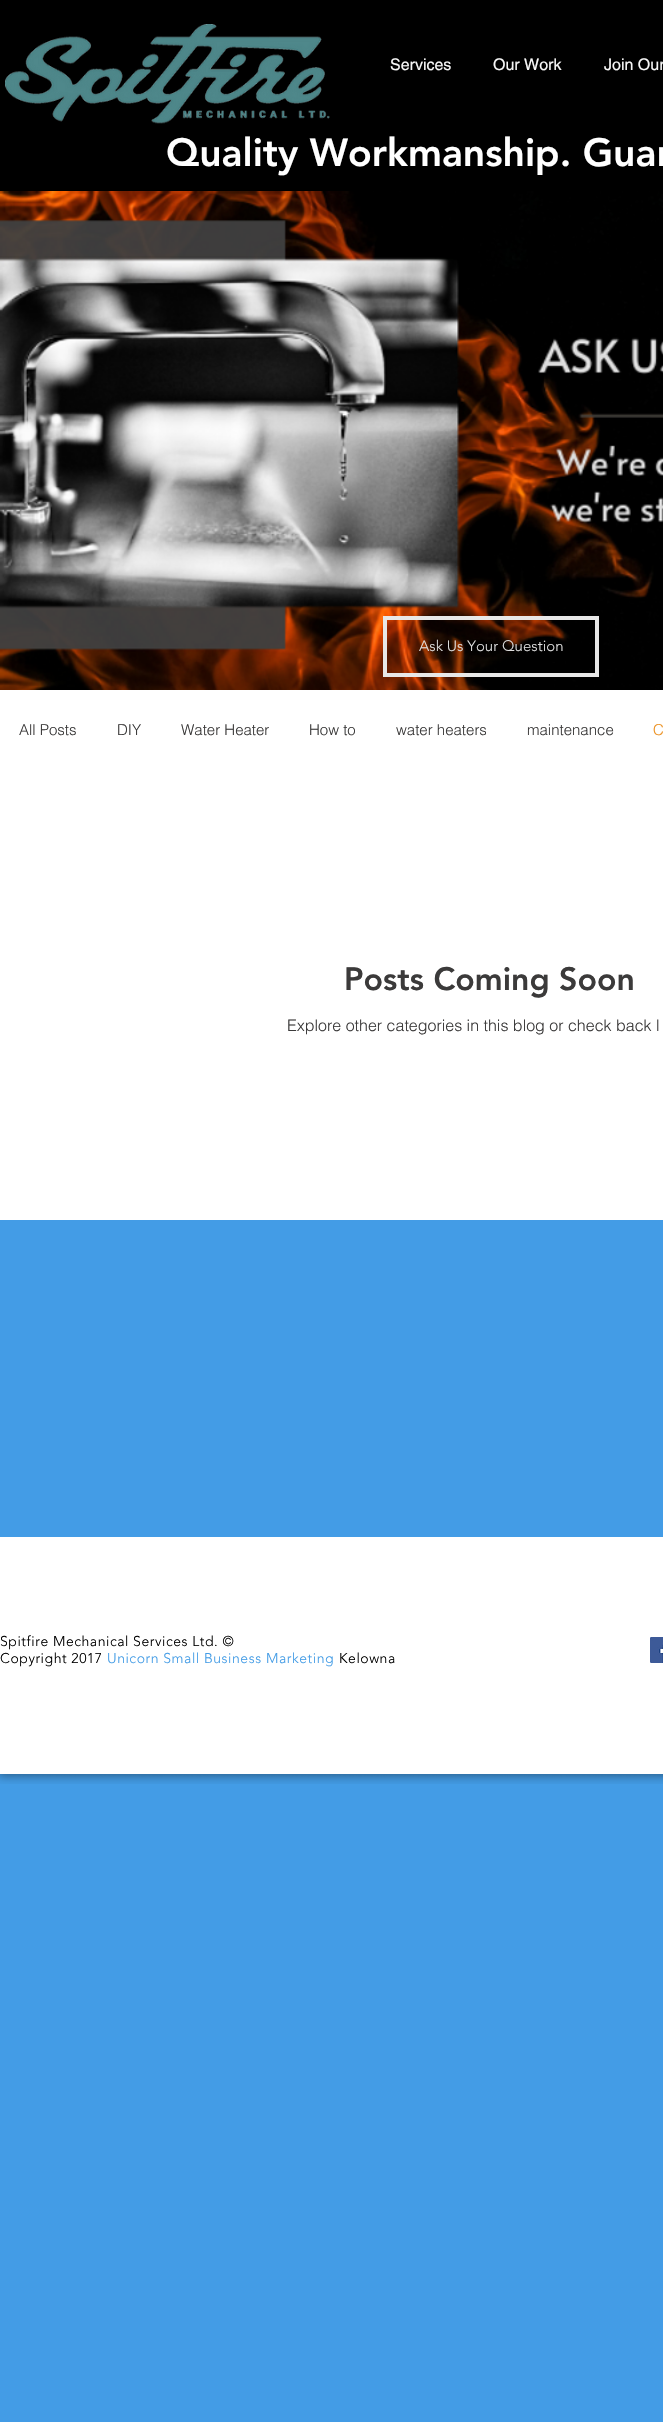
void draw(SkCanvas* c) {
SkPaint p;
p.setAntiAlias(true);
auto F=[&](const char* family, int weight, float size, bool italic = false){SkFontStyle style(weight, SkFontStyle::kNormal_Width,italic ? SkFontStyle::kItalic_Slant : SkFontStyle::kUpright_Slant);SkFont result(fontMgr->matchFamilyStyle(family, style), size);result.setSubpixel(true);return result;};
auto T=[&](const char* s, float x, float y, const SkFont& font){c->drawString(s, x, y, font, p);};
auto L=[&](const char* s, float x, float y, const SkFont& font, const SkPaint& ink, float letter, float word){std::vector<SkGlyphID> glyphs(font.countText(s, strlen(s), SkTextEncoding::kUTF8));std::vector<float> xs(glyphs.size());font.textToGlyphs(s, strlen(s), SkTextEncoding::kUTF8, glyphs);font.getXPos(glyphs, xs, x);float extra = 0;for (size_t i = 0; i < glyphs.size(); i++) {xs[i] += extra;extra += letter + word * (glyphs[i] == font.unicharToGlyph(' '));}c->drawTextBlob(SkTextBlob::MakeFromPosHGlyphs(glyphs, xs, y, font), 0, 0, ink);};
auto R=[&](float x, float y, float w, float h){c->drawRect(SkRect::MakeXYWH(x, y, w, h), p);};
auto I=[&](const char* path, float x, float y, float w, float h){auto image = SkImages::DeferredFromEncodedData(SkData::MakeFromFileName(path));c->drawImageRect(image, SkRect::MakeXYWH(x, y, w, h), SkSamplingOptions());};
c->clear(0xff439ce6);
p.setColor(0xff000000);
R(0,0,663,191);
c->save();
c->clipRect(SkRect::MakeXYWH(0,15,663,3));
p.setColor(0x99000000);
p.setMaskFilter(SkMaskFilter::MakeBlur(kNormal_SkBlurStyle, 2));
c->drawRoundRect(SkRect::MakeXYWH(-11,19,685,220),5,5,p);
p.setMaskFilter(nullptr);
c->restore();
I("1.png",5,24,325,100);
auto f1 = F("helvetica",400,16);
p.setColor(0xfff7f7f7);
T("Services",390,70,f1);
T("Our Work",493,70,f1);
T("Join Our",604,70,f1);
auto f2 = F("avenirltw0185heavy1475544",900,39);
p.setColor(0xffffffff);
T("Quality Workmanship. Guar",166,166,f2);
I("2.png",0,191,663,499);
p.setStroke(true);
p.setStrokeWidth(4);
p.setColor(0xffe8e8e8);
c->drawRect(SkRect::MakeXYWH(385,618,212,57),p);
auto f3 = F("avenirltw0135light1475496",300,15);
p.setStroke(false);
p.setColor(0xffdedede);
T("Ask Us Your Question",419,651,f3);
p.setColor(0xffffffff);
R(0,690,663,530);
auto f4 = F("helvetica",300,15);
p.setColor(0xff3b3a3a);
T("All Posts",19,735,f4);
T("DIY",117,735,f4);
T("Water Heater",181,735,f4);
T("How to",309,735,f4);
T("water heaters",396,735,f4);
T("maintenance",527,735,f4);
p.setColor(0xffec9121);
T("C",653,735,f4);
auto f5 = F("avenirltw0185heavy1475544",900,32);
p.setColor(0xff3b3a3a);
T("Posts Coming Soon",344,990,f5);
auto f6 = F("helvetica",300,16);
T("Explore other categories in this blog or check back l",287,1031,f6);
p.setColor(0xffffffff);
R(0,1537,663,237);
I("3.png",0,1774,35,10);
I("4.png",35,1774,628,10);
auto f7 = F("avenirltw0135light1475496",300,14);
p.setColor(0xff000000);
L("Spitfire Mechanical Services Ltd. ©",0,1646,f7,p,.55,0);
L("Copyright 2017",0,1663,f7,p,.55,0);
p.setColor(0xff439ce6);
L("Unicorn Small Business Marketing",107,1663,f7,p,.55,0);
p.setColor(0xff000000);
L("Kelowna",339,1663,f7,p,.55,0);
I("5.png",650,1637,13,26);
}
